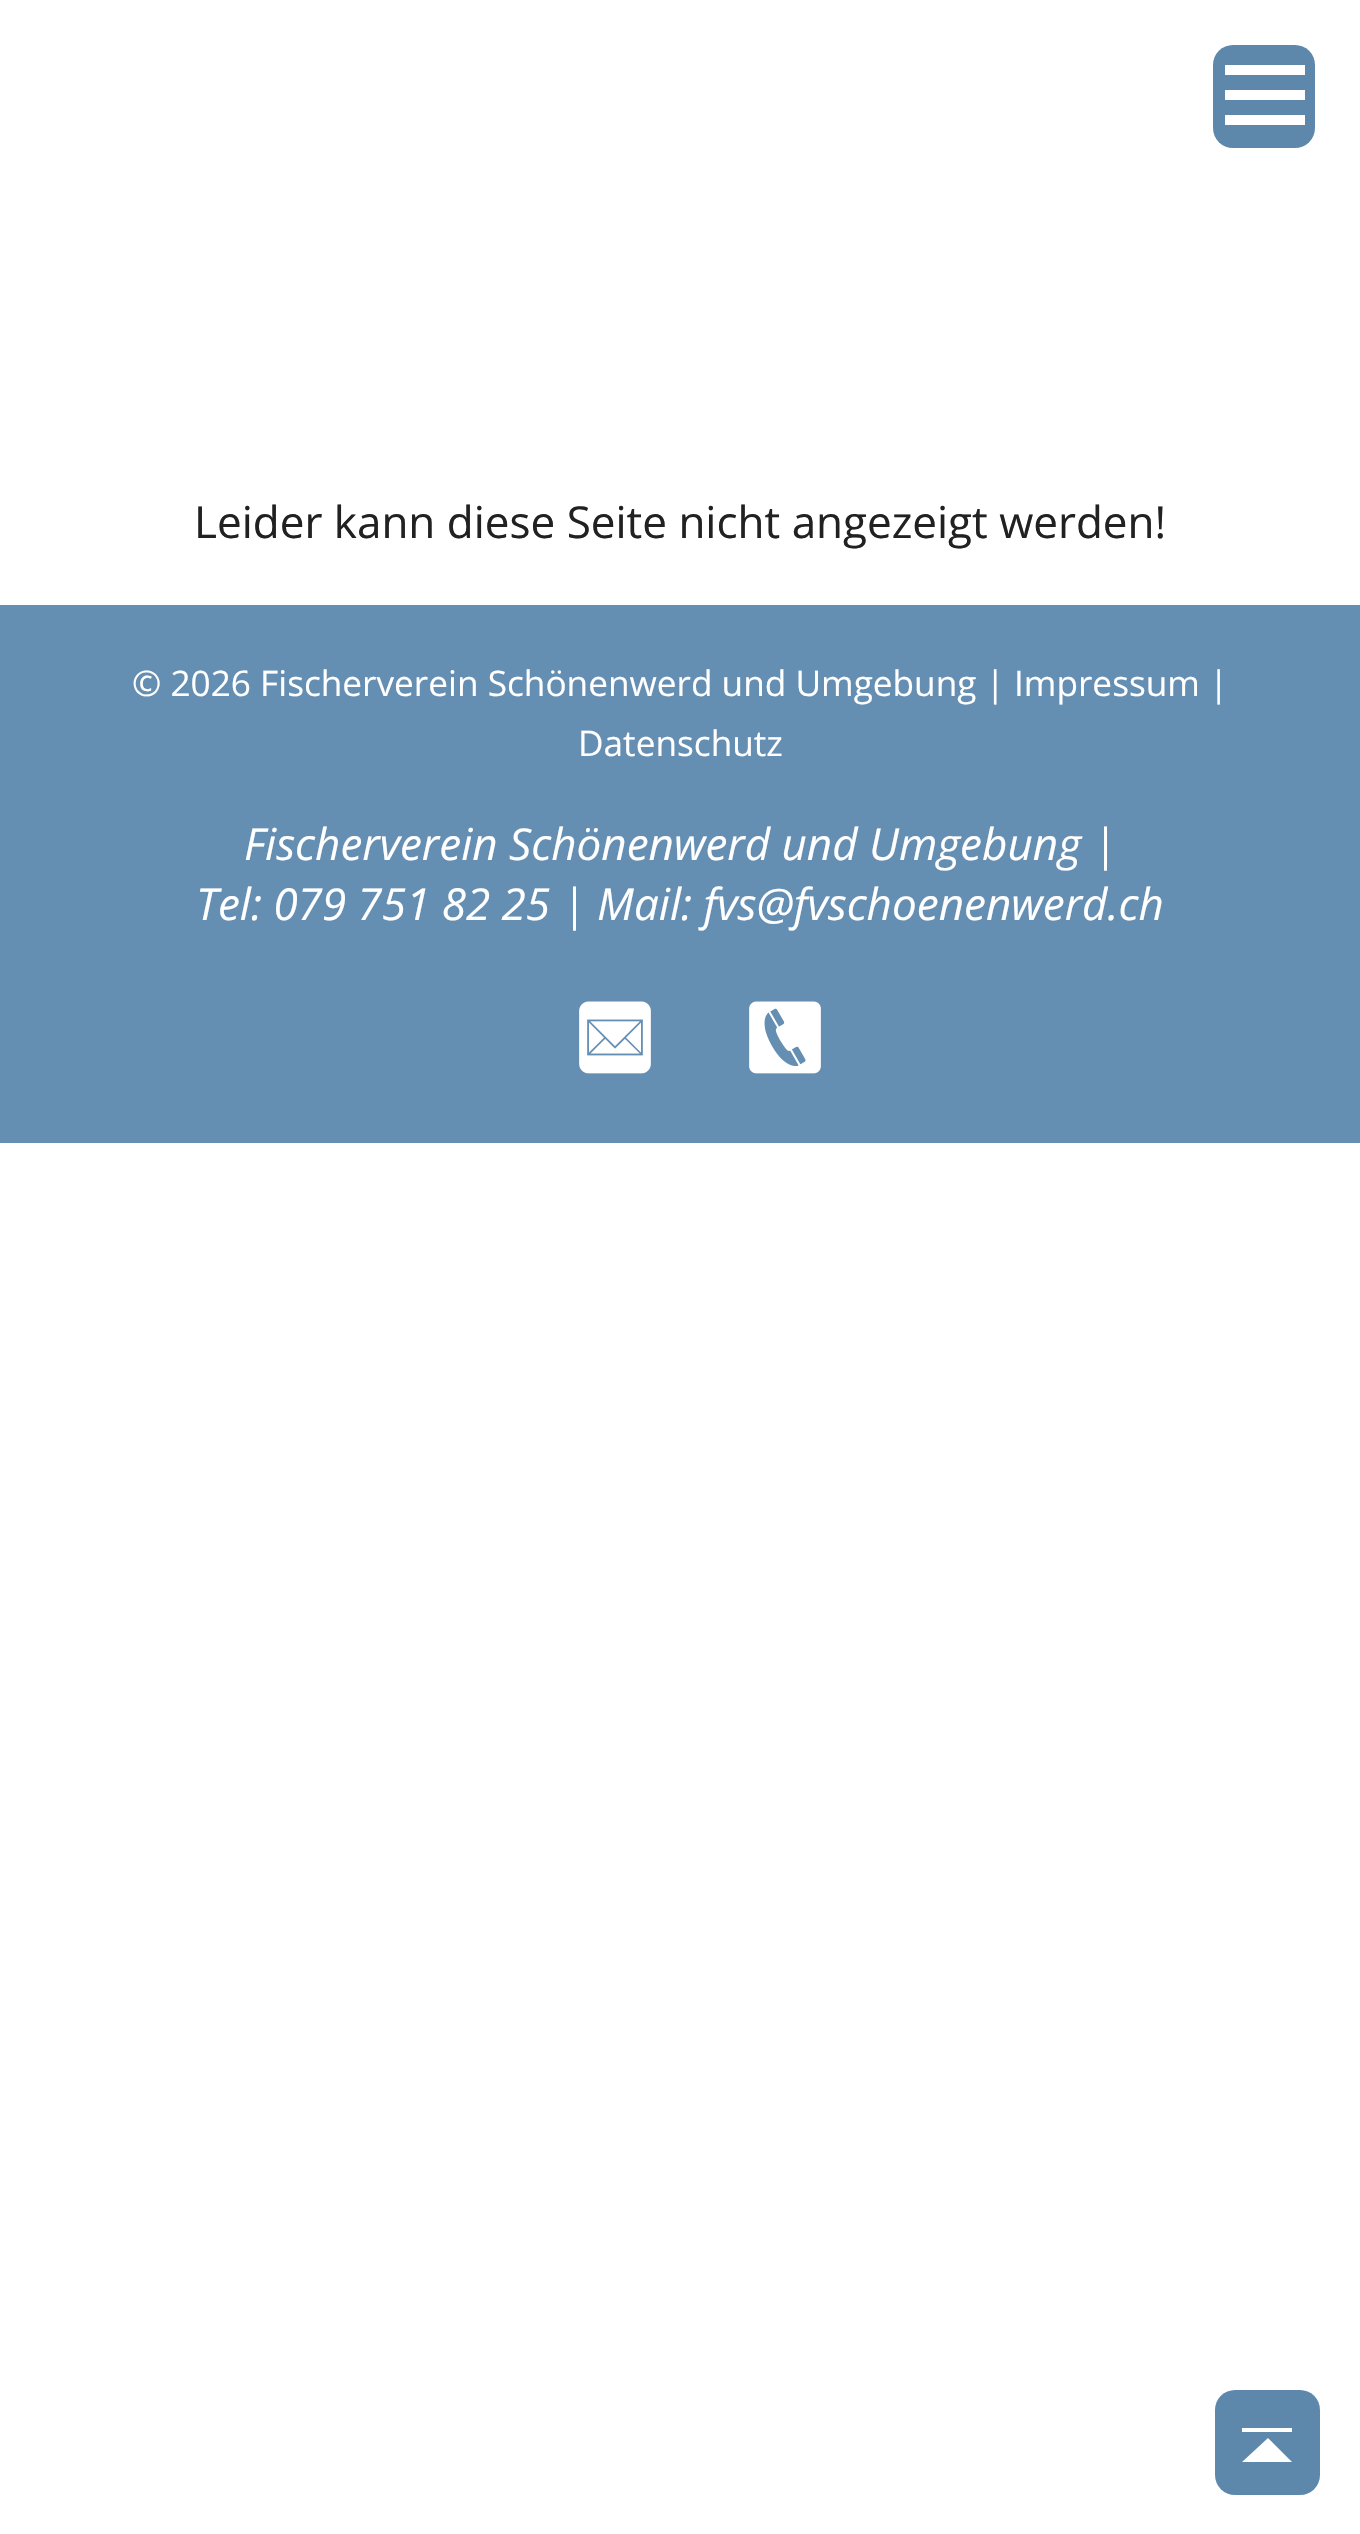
void draw(SkCanvas* c) {
SkPaint p;
p.setAntiAlias(true);
auto F=[&](const char* family, int weight, float size, bool italic = false){SkFontStyle style(weight, SkFontStyle::kNormal_Width,italic ? SkFontStyle::kItalic_Slant : SkFontStyle::kUpright_Slant);SkFont result(fontMgr->matchFamilyStyle(family, style), size);result.setSubpixel(true);return result;};
auto T=[&](const char* s, float x, float y, const SkFont& font){c->drawString(s, x, y, font, p);};
auto R=[&](float x, float y, float w, float h){c->drawRect(SkRect::MakeXYWH(x, y, w, h), p);};
auto Q=[&](float x, float y, float w, float h, float radius){c->drawRoundRect(SkRect::MakeXYWH(x, y, w, h), radius, radius, p);};
auto I=[&](const char* path, float x, float y, float w, float h){auto image = SkImages::DeferredFromEncodedData(SkData::MakeFromFileName(path));c->drawImageRect(image, SkRect::MakeXYWH(x, y, w, h), SkSamplingOptions());};
auto P=[&](const char* data, bool evenOdd = false){SkPath result = *SkParsePath::FromSVGString(data);if (evenOdd) result.setFillType(SkPathFillType::kEvenOdd);return result;};
c->clear(0xffffffff);
auto f1 = F("Open Sans",400,44);
p.setColor(0xff212121);
T("Leider kann diese Seite nicht angezeigt werden!",194,538,f1);
p.setColor(0xff5d88ac);
Q(1213,45,102,103,20);
p.setColor(0xffffffff);
c->drawPath(P("M1225 125v-10h80v10zm0-60h80v10h-80zm0 35v-10h80v10z"),p);
p.setColor(0xff5d88ac);
Q(1215,2390,105,105,20);
p.setColor(0xffffffff);
c->drawPath(P("M1242 2462l26-24l24 24zm0-34h50v4h-50z"),p);
p.setColor(0xff658eb3);
R(0,605,1360,538);
auto f2 = F("Open Sans",400,35.2);
p.setColor(0xffffffff);
T("© 2026 Fischerverein Schönenwerd und Umgebung | Impressum |",132,696,f2);
T("Datenschutz",578,756,f2);
auto f3 = F("Open Sans",400,44,true);
T("Fischerverein Schönenwerd und Umgebung |",244,860,f3);
T("Tel: 079 751 82 25 | Mail: fvs@fvschoenenwerd.ch",196,920,f3);
I("1.png",579,1001,72,73);
I("2.png",749,1001,72,73);
}
